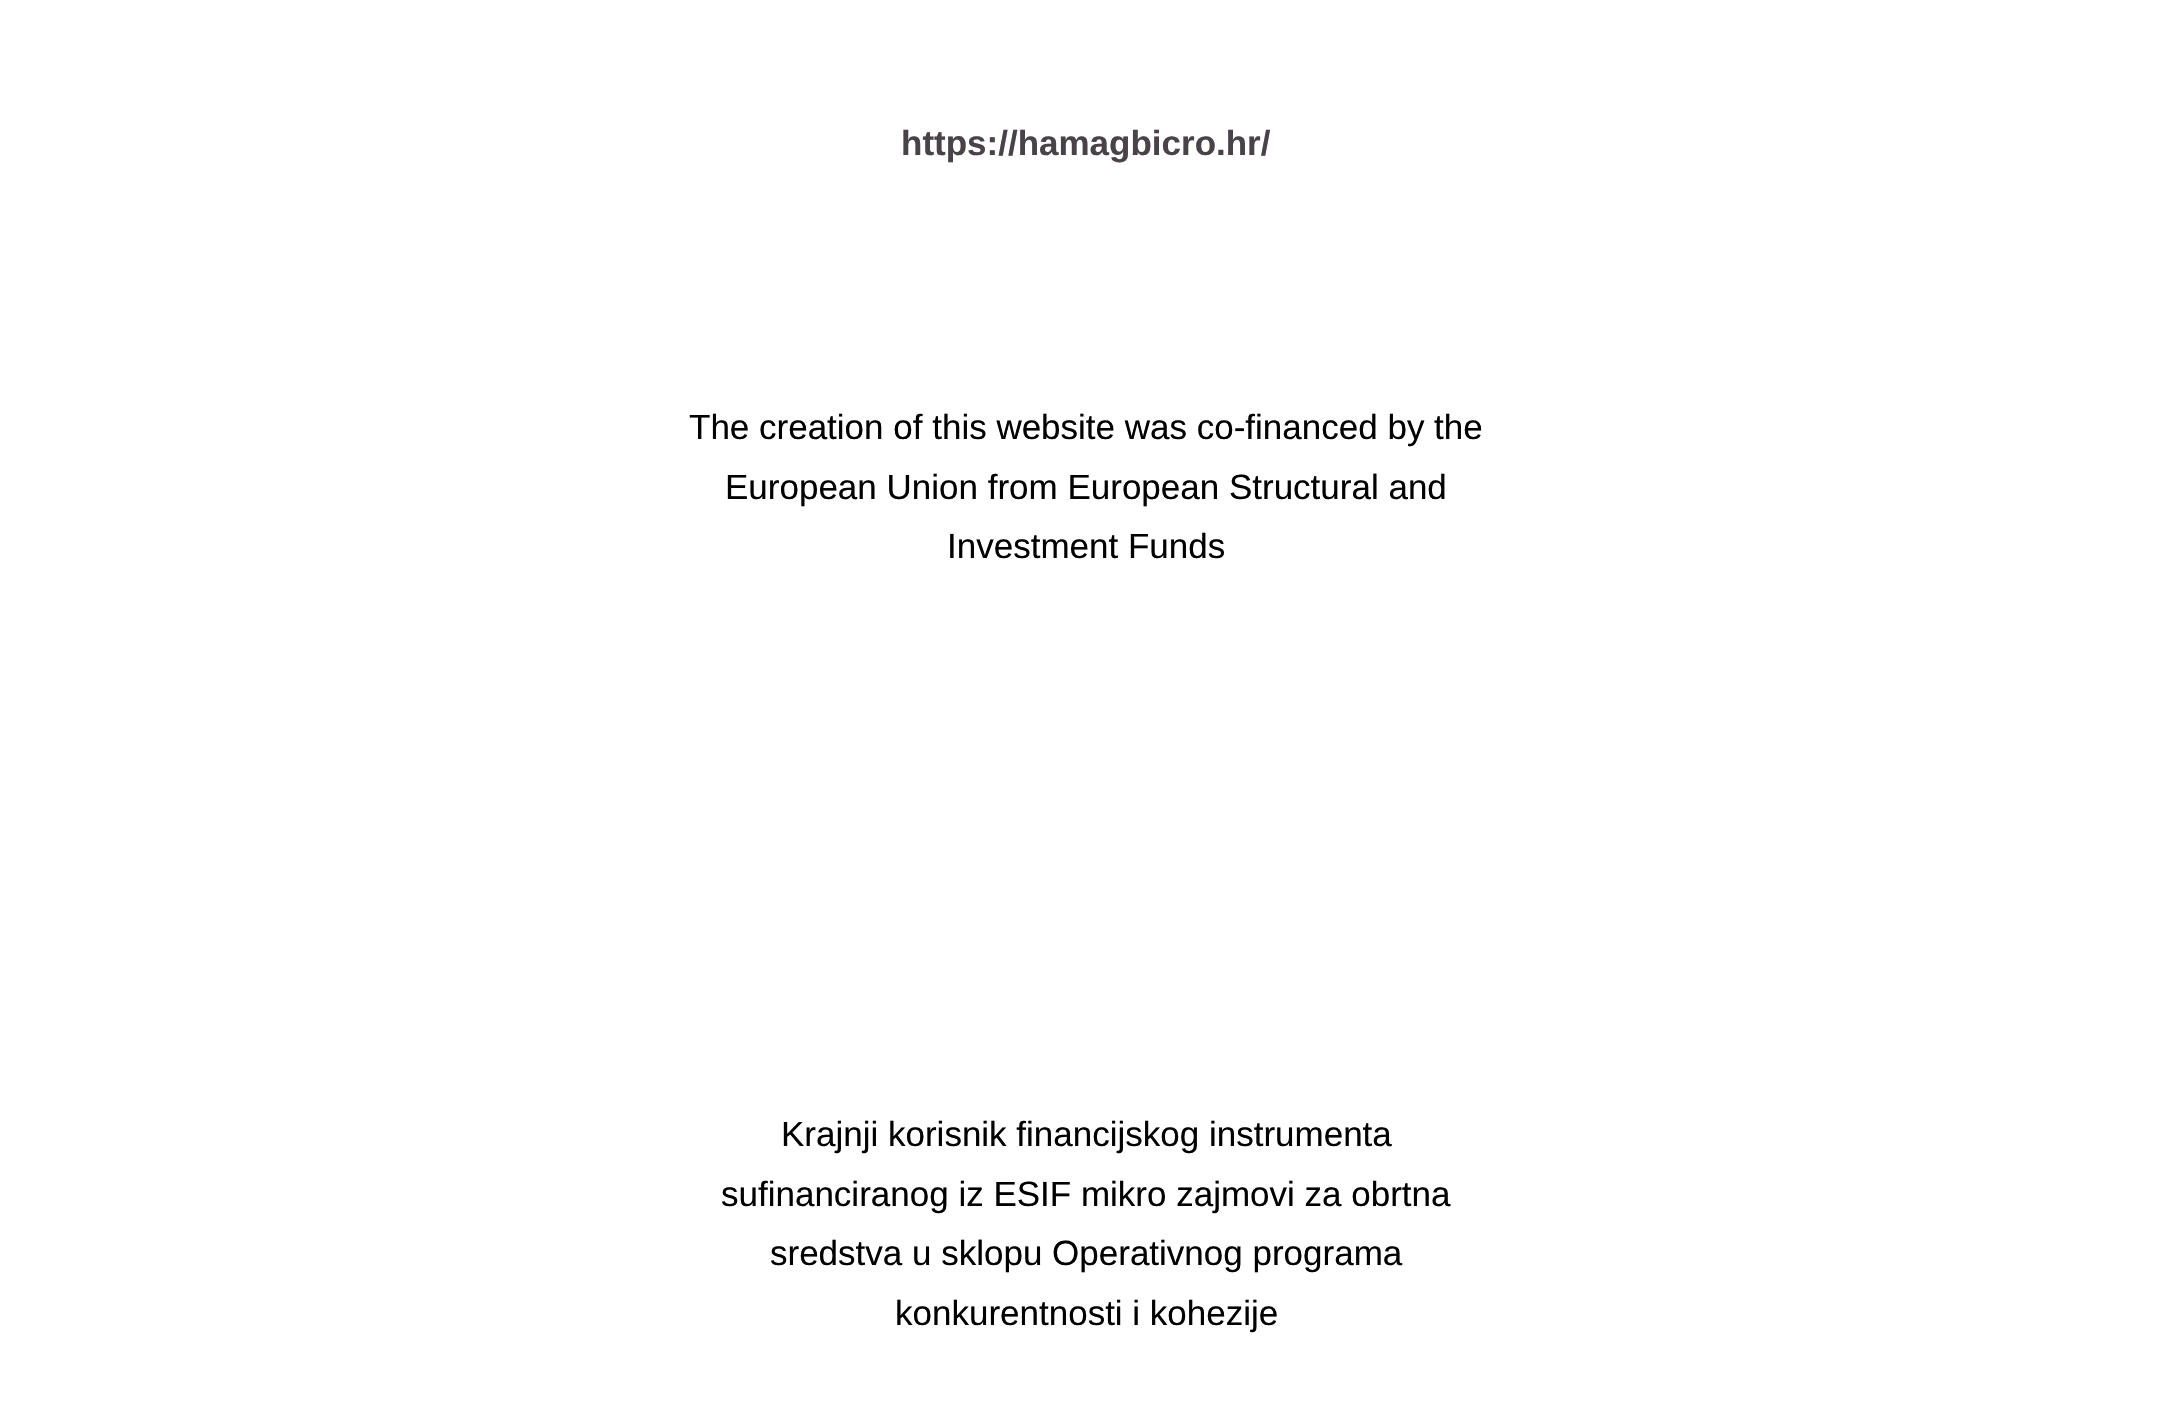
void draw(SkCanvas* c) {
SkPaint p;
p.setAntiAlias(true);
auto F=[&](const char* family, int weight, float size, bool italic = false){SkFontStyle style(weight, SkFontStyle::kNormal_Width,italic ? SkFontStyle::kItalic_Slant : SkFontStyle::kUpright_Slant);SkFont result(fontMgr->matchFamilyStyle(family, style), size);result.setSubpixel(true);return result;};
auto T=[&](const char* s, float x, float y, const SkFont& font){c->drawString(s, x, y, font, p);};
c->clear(0xffffffff);
auto f1 = F("Liberation Sans",700,35);
p.setColor(0xff494349);
T("https://hamagbicro.hr/",901,155,f1);
auto f2 = F("Liberation Sans",400,35);
p.setColor(0xff000000);
T("The creation of this website was co-financed by the",689,439,f2);
T("European Union from European Structural and",725,499,f2);
T("Investment Funds",947,558,f2);
T("Krajnji korisnik financijskog instrumenta",781,1146,f2);
T("sufinanciranog iz ESIF mikro zajmovi za obrtna",721,1206,f2);
T("sredstva u sklopu Operativnog programa",770,1265,f2);
T("konkurentnosti i kohezije",895,1325,f2);
}
